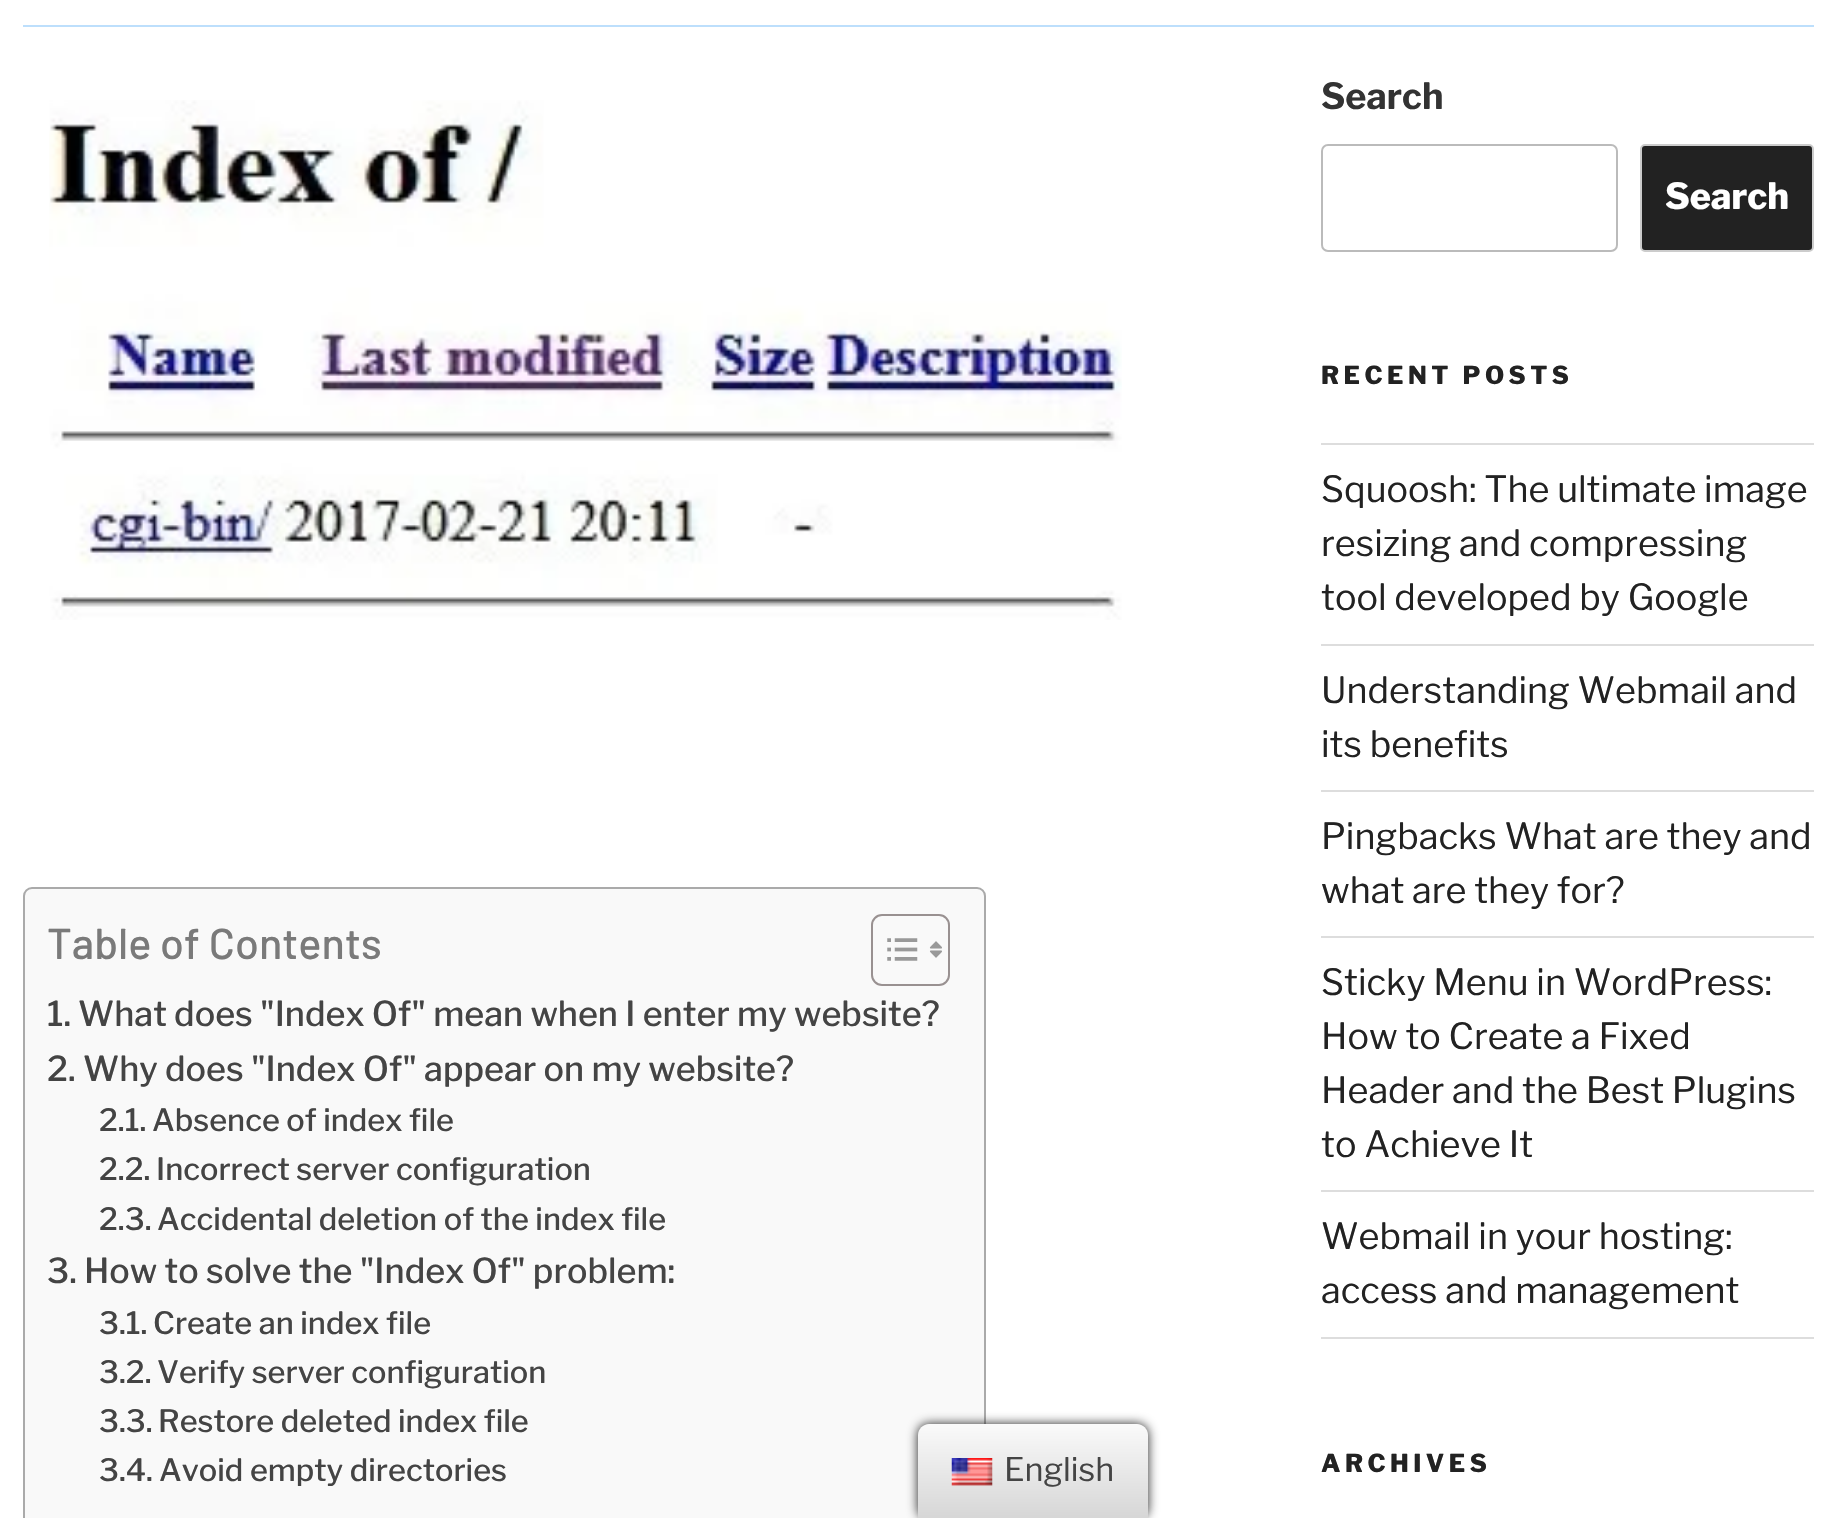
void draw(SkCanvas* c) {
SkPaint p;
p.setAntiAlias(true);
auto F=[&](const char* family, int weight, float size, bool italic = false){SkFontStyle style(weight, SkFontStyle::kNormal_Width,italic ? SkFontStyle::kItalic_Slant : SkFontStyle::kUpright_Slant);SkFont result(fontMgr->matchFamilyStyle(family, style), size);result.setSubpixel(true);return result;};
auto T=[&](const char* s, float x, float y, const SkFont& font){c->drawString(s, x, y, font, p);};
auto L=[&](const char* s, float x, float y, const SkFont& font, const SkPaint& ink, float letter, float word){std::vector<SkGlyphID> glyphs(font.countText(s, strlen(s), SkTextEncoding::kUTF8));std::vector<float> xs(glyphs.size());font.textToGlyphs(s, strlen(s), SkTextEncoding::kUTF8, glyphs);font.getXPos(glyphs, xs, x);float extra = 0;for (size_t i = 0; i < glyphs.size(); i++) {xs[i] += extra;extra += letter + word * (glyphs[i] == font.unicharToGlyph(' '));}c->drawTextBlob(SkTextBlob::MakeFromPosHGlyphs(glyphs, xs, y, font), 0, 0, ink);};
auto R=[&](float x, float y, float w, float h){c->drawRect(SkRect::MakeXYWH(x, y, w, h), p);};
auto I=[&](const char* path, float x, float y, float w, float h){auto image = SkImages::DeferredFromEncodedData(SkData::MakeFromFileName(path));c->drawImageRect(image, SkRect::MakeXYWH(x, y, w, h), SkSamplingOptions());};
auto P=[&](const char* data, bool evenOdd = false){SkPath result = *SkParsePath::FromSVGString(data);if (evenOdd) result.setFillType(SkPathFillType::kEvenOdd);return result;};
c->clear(0xffffffff);
p.setColor(0xffbddffc);
R(23,25,1791,2);
I("1.png",49,100,1073,520);
p.setColor(0xfff9f9f9);
c->drawRoundRect(SkRect::MakeXYWH(24,888,961,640),8,8,p);
p.setStroke(true);
p.setStrokeWidth(2);
p.setColor(0xffaaaaaa);
c->drawRoundRect(SkRect::MakeXYWH(24,888,961,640),8,8,p);
auto f1 = F("Barlow",500,43.25);
p.setStroke(false);
p.setColor(0xff7a7a7a);
T("Table of Contents",47,959,f1);
p.setStroke(true);
p.setColor(0xff999191);
c->drawRoundRect(SkRect::MakeXYWH(872,915,77,70),10,10,p);
I("2.png",887,938,31,23);
I("3.png",929,941,13,17);
auto f2 = F("Libre Franklin",500,34.2);
p.setStroke(false);
p.setColor(0xff444444);
T("1.",47,1026,f2);
T("What does \"Index Of\" mean when I enter my website?",78,1026,f2);
T("2.",47,1081,f2);
T("Why does \"Index Of\" appear on my website?",83,1081,f2);
auto f3 = F("Libre Franklin",500,30.75);
T("2.1.",99,1131,f3);
T("Absence of index file",152,1131,f3);
T("2.2.",99,1180,f3);
T("Incorrect server configuration",156,1180,f3);
T("2.3.",99,1230,f3);
T("Accidental deletion of the index file",157,1230,f3);
T("3.",47,1283,f2);
T("How to solve the \"Index Of\" problem:",84,1283,f2);
T("3.1.",99,1334,f3);
T("Create an index file",153,1334,f3);
T("3.2.",99,1383,f3);
T("Verify server configuration",157,1383,f3);
T("3.3.",99,1432,f3);
T("Restore deleted index file",158,1432,f3);
T("3.4.",99,1481,f3);
T("Avoid empty directories",159,1481,f3);
auto f4 = F("Libre Franklin",700,36);
p.setColor(0xff333333);
T("Search",1321,109,f4);
p.setStroke(true);
p.setColor(0xffbbbbbb);
c->drawRoundRect(SkRect::MakeXYWH(1322,145,295,106),6,6,p);
p.setStroke(false);
p.setColor(0xff222222);
c->drawRoundRect(SkRect::MakeXYWH(1641,145,172,106),4,4,p);
p.setStroke(true);
p.setColor(0xffcccccc);
c->drawRoundRect(SkRect::MakeXYWH(1641,145,172,106),4,4,p);
auto f5 = F("Libre Franklin",800,36);
p.setStroke(false);
p.setColor(0xffffffff);
T("Search",1665,209,f5);
auto f6 = F("Libre Franklin",800,24.75);
p.setColor(0xff222222);
L("RECENT POSTS",1321,384,f6,p,4.5,0);
p.setColor(0xffdddddd);
R(1321,443,493,2);
R(1321,644,493,2);
auto f7 = F("Libre Franklin",400,36);
p.setColor(0xff222222);
T("Squoosh: The ultimate image",1321,502,f7);
T("resizing and compressing",1321,556,f7);
T("tool developed by Google",1321,610,f7);
p.setColor(0xffdddddd);
R(1321,790,493,2);
p.setColor(0xff222222);
T("Understanding Webmail and",1321,703,f7);
T("its benefits",1321,757,f7);
p.setColor(0xffdddddd);
R(1321,936,493,2);
p.setColor(0xff222222);
T("Pingbacks What are they and",1321,849,f7);
T("what are they for?",1321,903,f7);
p.setColor(0xffdddddd);
R(1321,1190,493,2);
p.setColor(0xff222222);
T("Sticky Menu in WordPress:",1321,995,f7);
T("How to Create a Fixed",1321,1049,f7);
T("Header and the Best Plugins",1321,1103,f7);
T("to Achieve It",1321,1157,f7);
p.setColor(0xffdddddd);
R(1321,1337,493,2);
p.setColor(0xff222222);
T("Webmail in your hosting:",1321,1249,f7);
T("access and management",1321,1303,f7);
L("ARCHIVES",1321,1472,f6,p,4.5,0);
p.setColor(0xff212121);
p.setMaskFilter(SkMaskFilter::MakeBlur(kNormal_SkBlurStyle, 5.5));
c->drawRoundRect(SkRect::MakeXYWH(918,1424,230,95),11,11,p);
p.setMaskFilter(nullptr);
{
const SkColor colors[] = {0xffd6d6d6,0xfffafafa};
const float stops[] = {0,1};
const SkPoint ends[] = {{1033,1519}, {1033,1424}};
p.setShader(SkGradientShader::MakeLinear(ends, colors, stops, 2, SkTileMode::kClamp));
p.setAlpha(255);
}
c->drawPath(P("M929 1424h208c6 0 11 5 11 11v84h-230v-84c0-6 5-11 11-11z"),p);
I("4.png",951,1458,42,28);
auto f8 = F("Libre Franklin",400,32.5);
p.setShader(nullptr);
p.setColor(0xff444444);
T("English",1004,1481,f8);
}
